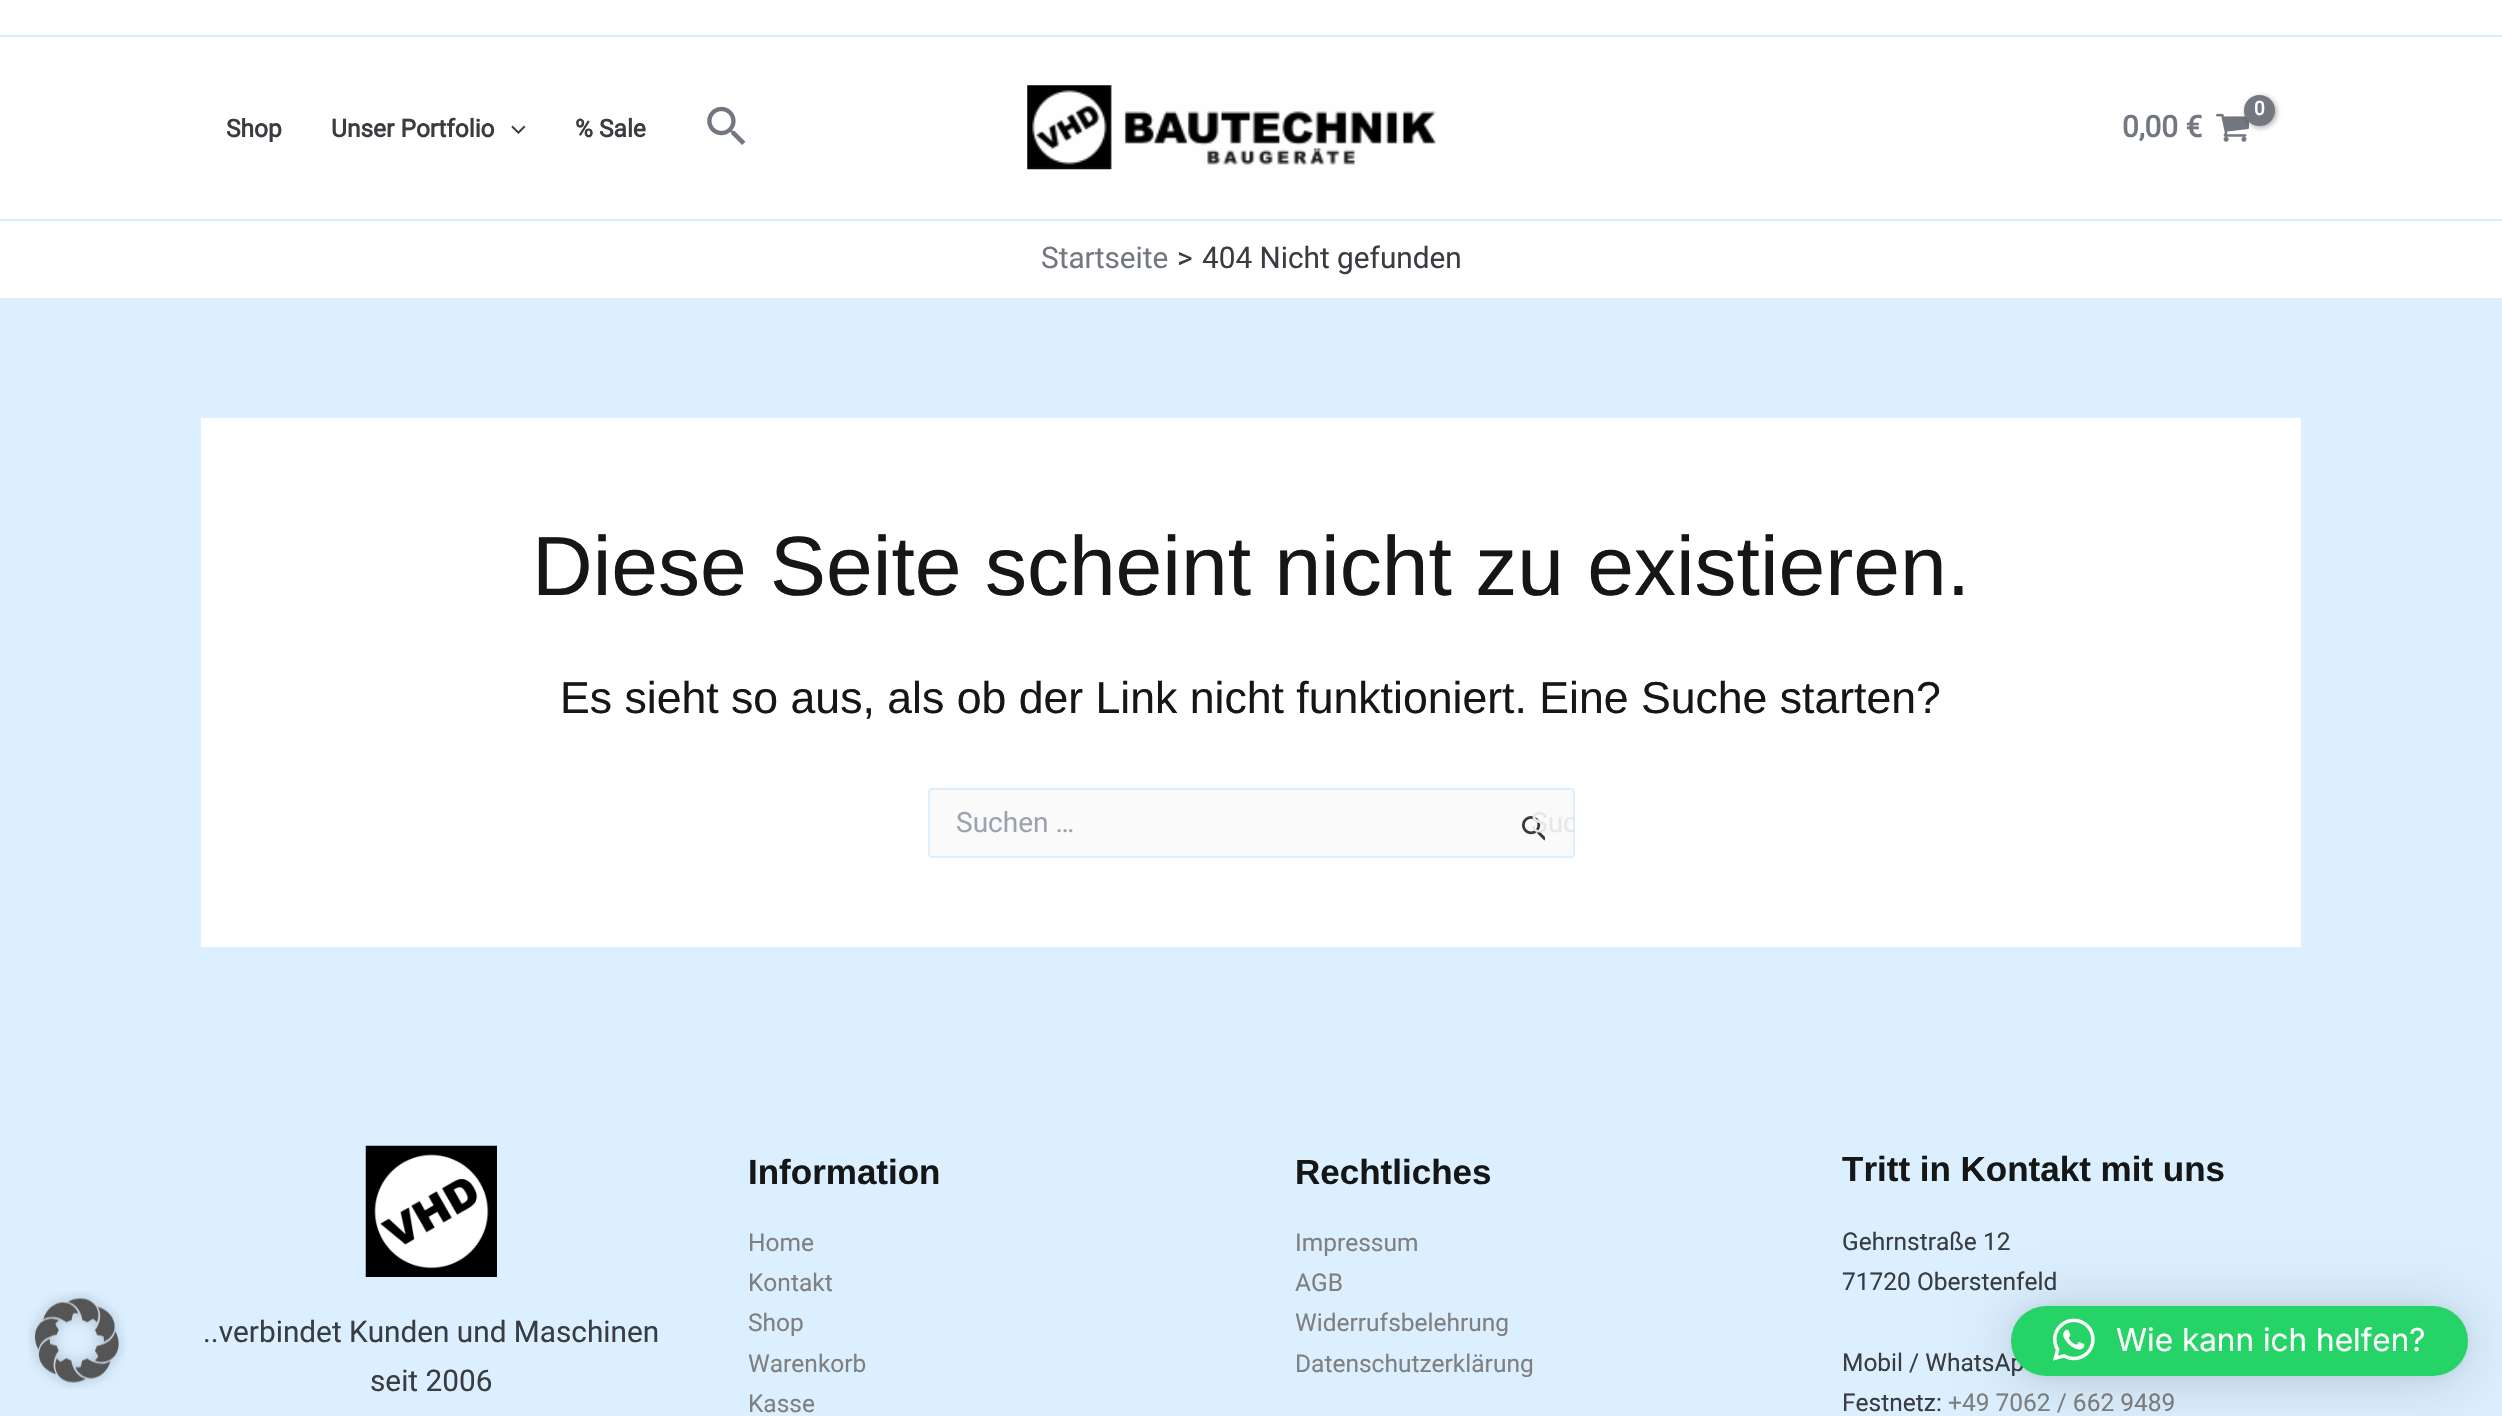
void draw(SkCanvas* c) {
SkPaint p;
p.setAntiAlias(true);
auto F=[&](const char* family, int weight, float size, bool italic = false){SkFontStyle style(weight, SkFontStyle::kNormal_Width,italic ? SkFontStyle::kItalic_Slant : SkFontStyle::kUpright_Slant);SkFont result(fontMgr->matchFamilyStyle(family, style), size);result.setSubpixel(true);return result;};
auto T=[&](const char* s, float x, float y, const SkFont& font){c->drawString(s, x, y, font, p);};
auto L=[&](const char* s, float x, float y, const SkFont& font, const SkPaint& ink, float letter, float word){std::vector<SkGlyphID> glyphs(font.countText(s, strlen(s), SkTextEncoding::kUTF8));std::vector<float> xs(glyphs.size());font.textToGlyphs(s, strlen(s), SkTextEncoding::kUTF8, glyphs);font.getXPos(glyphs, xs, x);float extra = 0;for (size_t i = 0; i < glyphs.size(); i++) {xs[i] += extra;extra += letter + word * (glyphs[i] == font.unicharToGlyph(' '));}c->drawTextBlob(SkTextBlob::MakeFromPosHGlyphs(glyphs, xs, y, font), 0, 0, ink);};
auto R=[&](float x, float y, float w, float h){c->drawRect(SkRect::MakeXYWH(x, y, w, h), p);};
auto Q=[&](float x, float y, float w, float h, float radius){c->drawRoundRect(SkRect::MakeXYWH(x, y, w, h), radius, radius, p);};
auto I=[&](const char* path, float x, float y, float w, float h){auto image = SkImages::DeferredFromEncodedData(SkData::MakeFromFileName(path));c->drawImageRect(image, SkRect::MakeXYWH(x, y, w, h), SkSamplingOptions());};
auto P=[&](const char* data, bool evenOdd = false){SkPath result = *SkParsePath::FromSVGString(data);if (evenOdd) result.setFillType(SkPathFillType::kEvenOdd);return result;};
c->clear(0xffdbefff);
I("1.png",28,1291,98,98);
p.setColor(0xffffffff);
R(0,0,2502,35);
R(0,37,2502,182);
auto f1 = F("Roboto",700,24.5);
p.setColor(0xff393c40);
T("Shop",226,137,f1);
T("Unser Portfolio",331,137,f1);
I("2.png",511,125,15,9);
T("% Sale",575,137,f1);
I("3.png",707,106,39,39);
I("4.png",1027,85,409,85);
I("5.png",2216,113,33,29);
p.setColor(0x4d000000);
p.setMaskFilter(SkMaskFilter::MakeBlur(kNormal_SkBlurStyle, 2.5));
c->drawRoundRect(SkRect::MakeXYWH(2245,96,32,32),16,16,p);
p.setMaskFilter(nullptr);
p.setColor(0xff737880);
c->drawCircle(2259.5,110.5,15.5,p);
auto f2 = F("Roboto",700,19);
p.setColor(0xffffffff);
L("0",2254,115,f2,p,-1,0);
auto f3 = F("Roboto",700,29.75);
p.setColor(0xff737880);
T("0,00 €",2122,137,f3);
p.setColor(0xffffffff);
R(0,221,2502,77);
auto f4 = F("Roboto",400,29.75);
p.setColor(0xff737880);
T("Startseite",1041,268,f4);
p.setColor(0xff393c40);
T(">",1177,268,f4);
T("404 Nicht gefunden",1202,268,f4);
p.setColor(0xffffffff);
R(201,418,2100,529);
auto f5 = F("Liberation Sans",400,84);
p.setColor(0xff151616);
T("Diese Seite scheint nicht zu existieren.",532,595,f5);
auto f6 = F("Liberation Sans",400,44.6);
T("Es sieht so aus, als ob der Link nicht funktioniert. Eine Suche starten?",560,713,f6);
p.setColor(0xfffafafa);
c->drawRoundRect(SkRect::MakeXYWH(929,789,645,68),3,3,p);
p.setStroke(true);
p.setStrokeWidth(2);
p.setColor(0xffdbefff);
c->drawRoundRect(SkRect::MakeXYWH(929,789,645,68),3,3,p);
auto f7 = F("Roboto",400,28);
p.setStroke(false);
p.setColor(0xff9ca3af);
T("Suchen …",956,832,f7);
I("6.png",1522,816,23,25);
c->save();
c->clipPath(P("M1500 788h71c2 0 4 2 4 4v65c0 2-2 4-4 4h-71c-2 0-4-2-4-4v-65c0-2 2-4 4-4z"),true);
p.setColor(0xffe6e7e8);
T("Suc",1531,832,f7);
c->restore();
I("7.png",365,1145,132,132);
p.setColor(0xff393c40);
T("..verbindet Kunden und Maschinen",203,1342,f4);
T("seit 2006",370,1391,f4);
auto f8 = F("Liberation Sans",700,35);
p.setColor(0xff151616);
T("Information",748,1184,f8);
auto f9 = F("Roboto",400,24.5);
p.setColor(0xff808080);
T("Home",748,1251,f9);
T("Kontakt",748,1291,f9);
T("Shop",748,1331,f9);
T("Warenkorb",748,1372,f9);
T("Kasse",748,1412,f9);
p.setColor(0xff151616);
T("Rechtliches",1295,1184,f8);
p.setColor(0xff808080);
T("Impressum",1295,1251,f9);
T("AGB",1295,1291,f9);
T("Widerrufsbelehrung",1295,1331,f9);
T("Datenschutzerklärung",1295,1372,f9);
p.setColor(0xff151616);
T("Tritt in Kontakt mit uns",1842,1181,f8);
p.setColor(0xff393c40);
T("Gehrnstraße 12",1842,1250,f9);
T("71720 Oberstenfeld",1842,1290,f9);
T("Mobil / WhatsAp",1842,1371,f9);
T("Festnetz:",1842,1411,f9);
p.setColor(0xff808080);
T("+49 7062 / 662 9489",1948,1411,f9);
p.setColor(0x29000000);
p.setMaskFilter(SkMaskFilter::MakeBlur(kNormal_SkBlurStyle, 28));
c->drawRoundRect(SkRect::MakeXYWH(2011,1309,457,70),35,35,p);
p.setMaskFilter(nullptr);
p.setColor(0x0f000000);
p.setMaskFilter(SkMaskFilter::MakeBlur(kNormal_SkBlurStyle, 5));
c->drawRoundRect(SkRect::MakeXYWH(2011,1307,457,70),35,35,p);
p.setMaskFilter(nullptr);
p.setColor(0xff25d366);
Q(2011,1306,457,70,35);
I("8.png",2052,1318,43,43);
auto f10 = F("Inter",400,31.5);
p.setColor(0xffffffff);
T("Wie kann ich helfen?",2116,1351,f10);
}
